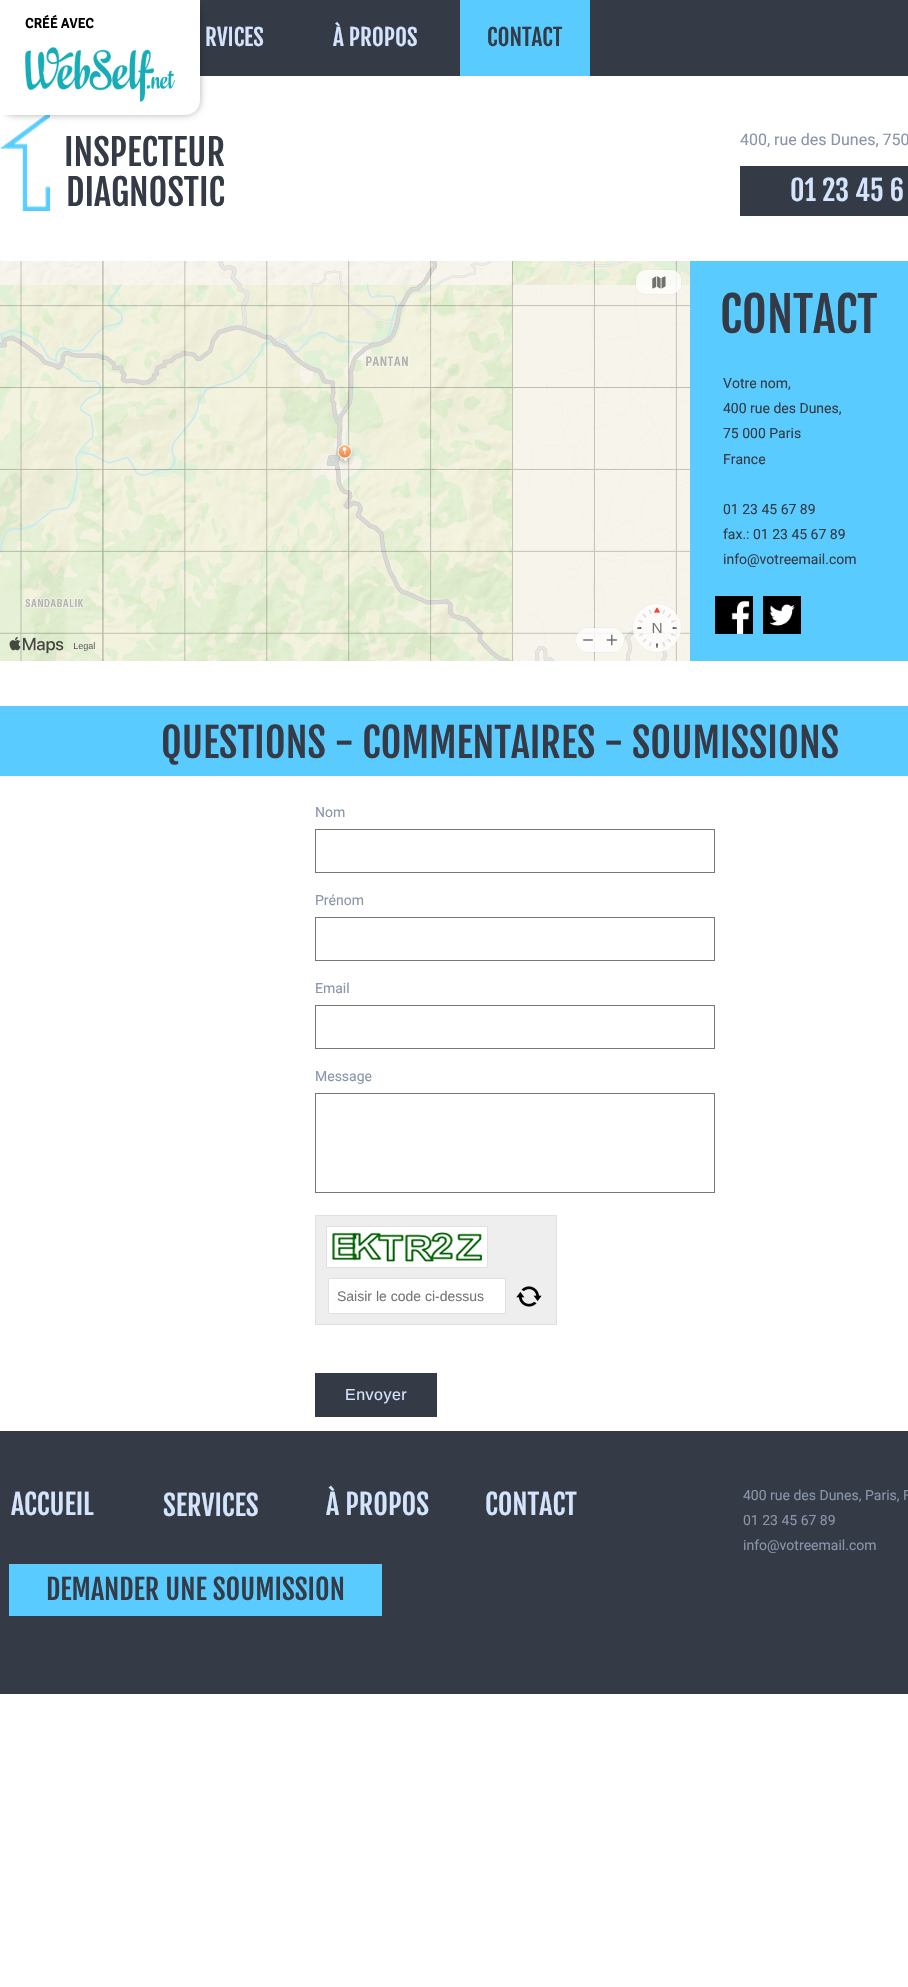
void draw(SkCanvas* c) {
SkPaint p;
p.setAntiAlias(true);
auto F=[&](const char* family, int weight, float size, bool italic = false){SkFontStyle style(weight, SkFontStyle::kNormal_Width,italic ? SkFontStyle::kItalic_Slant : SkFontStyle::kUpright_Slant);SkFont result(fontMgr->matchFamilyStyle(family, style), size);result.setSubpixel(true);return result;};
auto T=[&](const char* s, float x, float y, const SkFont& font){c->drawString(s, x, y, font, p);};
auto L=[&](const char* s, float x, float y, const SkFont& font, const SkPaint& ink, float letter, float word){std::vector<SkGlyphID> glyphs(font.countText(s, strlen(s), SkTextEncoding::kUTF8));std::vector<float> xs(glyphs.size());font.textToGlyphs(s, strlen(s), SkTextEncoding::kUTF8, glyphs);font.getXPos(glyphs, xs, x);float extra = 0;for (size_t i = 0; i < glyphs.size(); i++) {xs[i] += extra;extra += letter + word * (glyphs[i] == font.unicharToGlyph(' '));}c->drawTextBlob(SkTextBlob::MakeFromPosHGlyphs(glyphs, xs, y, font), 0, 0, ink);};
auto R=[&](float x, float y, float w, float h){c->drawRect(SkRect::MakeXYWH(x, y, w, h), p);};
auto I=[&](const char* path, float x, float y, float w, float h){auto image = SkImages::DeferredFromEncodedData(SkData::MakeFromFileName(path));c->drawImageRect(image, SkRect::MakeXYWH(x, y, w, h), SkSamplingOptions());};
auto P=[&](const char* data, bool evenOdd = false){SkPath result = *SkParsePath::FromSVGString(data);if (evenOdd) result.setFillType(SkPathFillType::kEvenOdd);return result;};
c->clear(0xffffffff);
p.setColor(0xff343b46);
R(200,0,708,76);
I("2.png",0,115,50,96);
p.setColor(0x4d000000);
p.setMaskFilter(SkMaskFilter::MakeBlur(kNormal_SkBlurStyle, 3.5));
c->drawRoundRect(SkRect::MakeXYWH(0,0,200,115),15,15,p);
p.setMaskFilter(nullptr);
p.setColor(0xffffffff);
c->drawPath(P("M0 0h200v100c0 8.5-6.5 15-15 15h-185z"),p);
auto f1 = F("Signika",700,14);
p.setColor(0xff000000);
T("CRÉÉ AVEC",25,28,f1);
I("1.png",25,47,150,55);
auto f2 = F("Fjalla One",400,23);
p.setColor(0xffd5e4fd);
T("RVICES",205,46,f2);
T("À PROPOS",333,46,f2);
p.setColor(0xff5acbff);
R(460,0,130,76);
p.setColor(0xff343b46);
T("CONTACT",487,46,f2);
auto f3 = F("Fjalla One",400,36);
T("INSPECTEUR",64,166,f3);
T("DIAGNOSTIC",66,206,f3);
auto f4 = F("Roboto",400,16);
p.setColor(0xff8995aa);
T("400, rue des Dunes, 750",740,145,f4);
p.setColor(0xff343b46);
R(740,166,168,50);
auto f5 = F("Fjalla One",400,28);
p.setColor(0xffd5e4fd);
T("01 23 45 6",790,201,f5);
I("3.png",0,261,690,400);
p.setColor(0xff5acbff);
R(690,261,218,400);
auto f6 = F("Fjalla One",400,48);
p.setColor(0xff343b46);
T("CONTACT",720,333,f6);
auto f7 = F("Roboto",400,14);
T("Votre nom,",723,388,f7);
T("400 rue des Dunes,",723,413,f7);
T("75 000 Paris",723,438,f7);
T("France",723,464,f7);
T("01 23 45 67 89",723,514,f7);
T("fax.: 01 23 45 67 89",723,539,f7);
T("info@votreemail.com",723,564,f7);
I("4.png",715,596,38,38);
I("5.png",763,596,38,38);
p.setColor(0xff5acbff);
R(0,706,908,70);
auto f8 = F("Fjalla One",400,40);
p.setColor(0xff343b46);
T("QUESTIONS - COMMENTAIRES - SOUMISSIONS",161,758,f8);
p.setColor(0xff8995aa);
T("Nom",315,817,f7);
p.setStroke(true);
p.setStrokeWidth(1);
p.setColor(0xff777777);
c->drawRect(SkRect::MakeXYWH(315.5,829.5,399,43),p);
p.setStroke(false);
p.setColor(0xff8995aa);
T("Prénom",315,905,f7);
p.setStroke(true);
p.setColor(0xff777777);
c->drawRect(SkRect::MakeXYWH(315.5,917.5,399,43),p);
p.setStroke(false);
p.setColor(0xff8995aa);
T("Email",315,993,f7);
p.setStroke(true);
p.setColor(0xff777777);
c->drawRect(SkRect::MakeXYWH(315.5,1005.5,399,43),p);
p.setStroke(false);
p.setColor(0xff8995aa);
T("Message",315,1081,f7);
p.setStroke(true);
p.setColor(0xff777777);
c->drawRect(SkRect::MakeXYWH(315.5,1093.5,399,99),p);
p.setStroke(false);
p.setColor(0xffeeeeee);
c->drawRect(SkRect::MakeXYWH(315.5,1215.5,241,109),p);
p.setStroke(true);
p.setColor(0xffe1e1e1);
c->drawRect(SkRect::MakeXYWH(315.5,1215.5,241,109),p);
p.setStroke(false);
p.setColor(0xffffffff);
c->drawRect(SkRect::MakeXYWH(326.5,1226.5,161,41),p);
p.setStroke(true);
p.setColor(0xffe1e1e1);
c->drawRect(SkRect::MakeXYWH(326.5,1226.5,161,41),p);
I("6.png",332,1232,150,30);
p.setStroke(false);
p.setColor(0xffffffff);
c->drawRect(SkRect::MakeXYWH(328.5,1278.5,177,35),p);
p.setStroke(true);
p.setColor(0xffe1e1e1);
c->drawRect(SkRect::MakeXYWH(328.5,1278.5,177,35),p);
auto f9 = F("Liberation Sans",400,14);
p.setStroke(false);
p.setColor(0xff757575);
T("Saisir le code ci-dessus",337,1301,f9);
I("7.png",516,1286,26,21);
p.setColor(0xff343b46);
R(315,1373,122,44);
auto f10 = F("Liberation Sans",400,16);
p.setColor(0xffd5e4fd);
L("Envoyer",345,1400,f10,p,.5,0);
p.setColor(0xff343b46);
R(0,1431,908,263);
p.setColor(0xffd5e4fd);
T("ACCUEIL",11,1515,f5);
T("SERVICES",163,1516,f5);
T("À PROPOS",326,1515,f5);
T("CONTACT",485,1515,f5);
p.setColor(0xff8995aa);
T("400 rue des Dunes, Paris, F",743,1500,f7);
T("01 23 45 67 89",743,1525,f7);
T("info@votreemail.com",743,1550,f7);
p.setColor(0xff5acbff);
R(9,1564,373,52);
p.setColor(0xff343b46);
T("DEMANDER UNE SOUMISSION",46,1600,f5);
}
